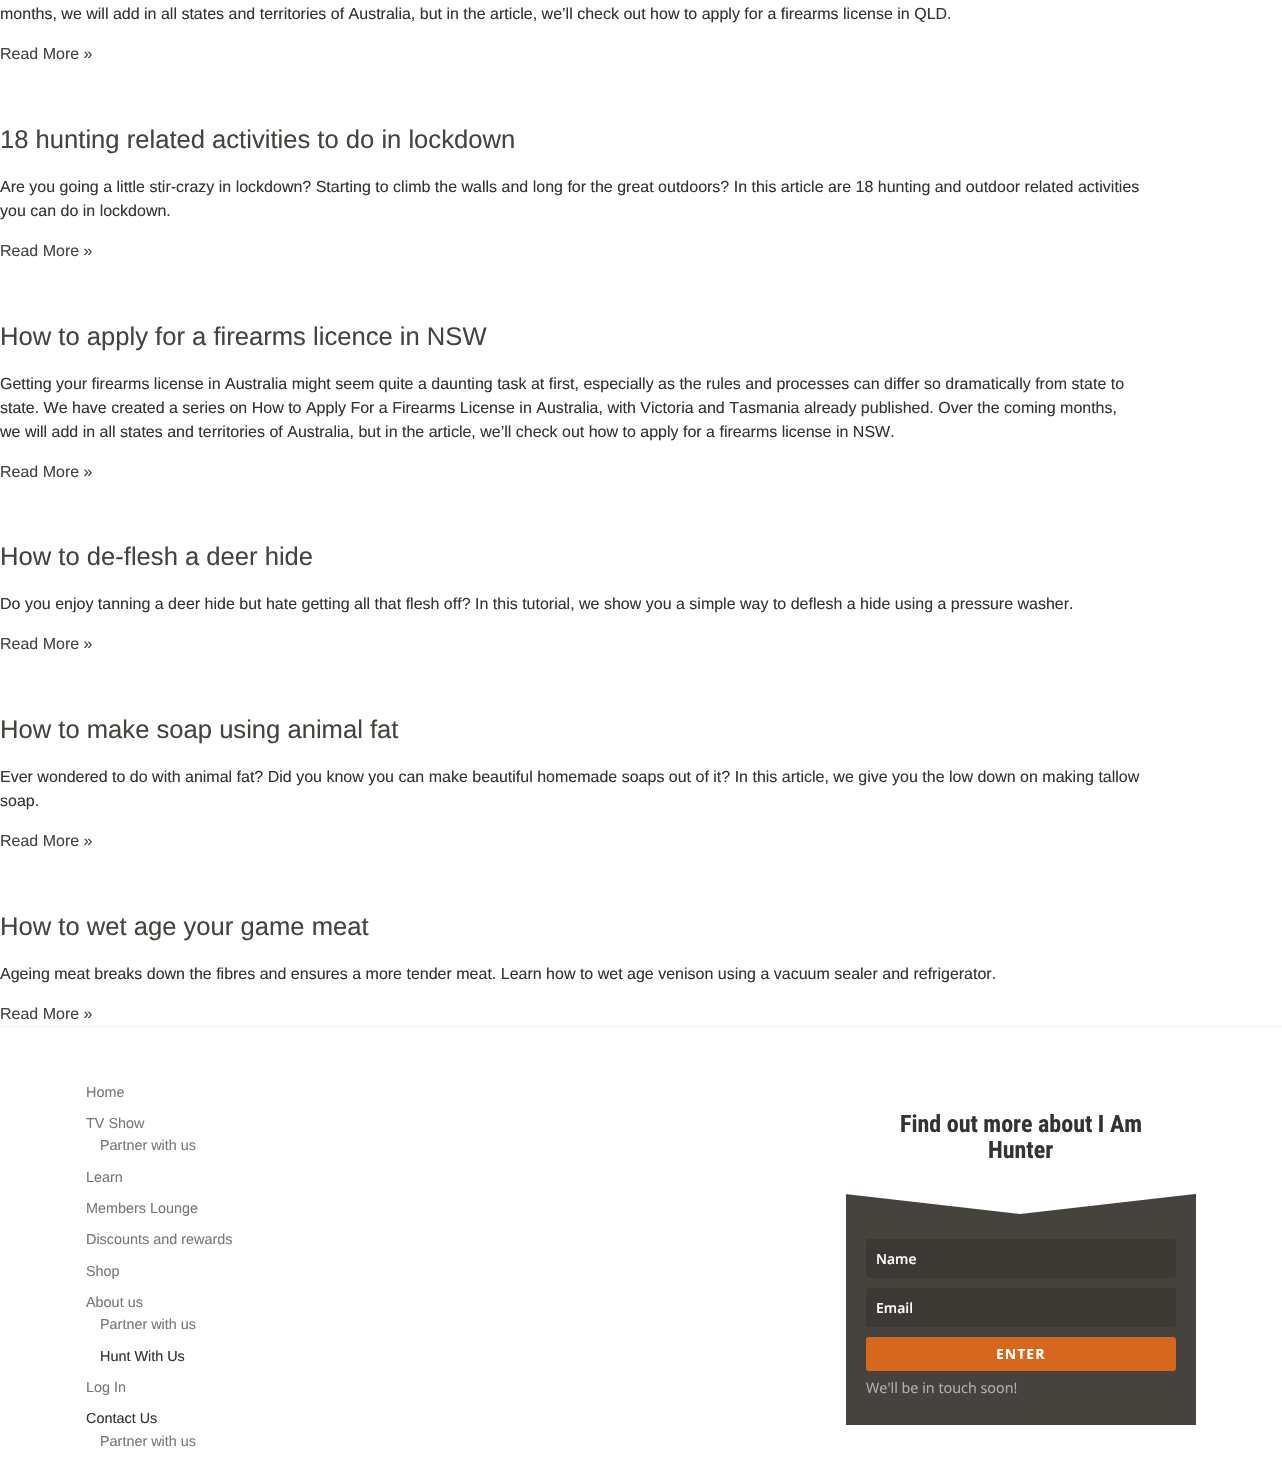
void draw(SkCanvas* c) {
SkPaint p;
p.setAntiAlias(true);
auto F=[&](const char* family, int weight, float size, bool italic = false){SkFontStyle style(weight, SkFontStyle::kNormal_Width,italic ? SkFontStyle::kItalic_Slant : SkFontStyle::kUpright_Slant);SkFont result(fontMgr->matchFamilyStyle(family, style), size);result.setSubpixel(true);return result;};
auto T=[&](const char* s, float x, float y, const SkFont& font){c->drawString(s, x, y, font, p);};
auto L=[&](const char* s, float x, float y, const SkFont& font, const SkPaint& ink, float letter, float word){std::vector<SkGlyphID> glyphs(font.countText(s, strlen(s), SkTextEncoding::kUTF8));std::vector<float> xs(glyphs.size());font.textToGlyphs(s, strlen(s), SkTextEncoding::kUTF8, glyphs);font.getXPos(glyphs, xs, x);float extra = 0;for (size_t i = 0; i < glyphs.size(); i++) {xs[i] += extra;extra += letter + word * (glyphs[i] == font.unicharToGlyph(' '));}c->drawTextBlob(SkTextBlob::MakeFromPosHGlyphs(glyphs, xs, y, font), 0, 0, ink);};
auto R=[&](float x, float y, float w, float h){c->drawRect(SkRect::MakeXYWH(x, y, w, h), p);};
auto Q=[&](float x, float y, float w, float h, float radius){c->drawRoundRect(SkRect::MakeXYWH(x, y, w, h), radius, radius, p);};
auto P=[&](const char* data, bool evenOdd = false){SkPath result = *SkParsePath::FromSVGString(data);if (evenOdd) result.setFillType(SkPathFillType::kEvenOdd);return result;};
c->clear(0xffffffff);
auto f1 = F("Liberation Sans",400,16);
p.setColor(0xff333333);
T("months, we will add in all states and territories of Australia, but in the article, we’ll check out how to apply for a firearms license in QLD.",0,19,f1);
p.setColor(0xff46433e);
T("Read More »",0,59,f1);
auto f2 = F("Liberation Sans",400,25.6);
T("18 hunting related activities to do in lockdown",0,148,f2);
p.setColor(0xff333333);
T("Are you going a little stir-crazy in lockdown? Starting to climb the walls and long for the great outdoors? In this article are 18 hunting and outdoor related activities",0,192,f1);
T("you can do in lockdown.",0,216,f1);
p.setColor(0xff46433e);
T("Read More »",0,256,f1);
T("How to apply for a firearms licence in NSW",0,345,f2);
p.setColor(0xff333333);
T("Getting your firearms license in Australia might seem quite a daunting task at first, especially as the rules and processes can differ so dramatically from state to",0,389,f1);
T("state. We have created a series on How to Apply For a Firearms License in Australia, with Victoria and Tasmania already published. Over the coming months,",0,413,f1);
T("we will add in all states and territories of Australia, but in the article, we’ll check out how to apply for a firearms license in NSW.",0,437,f1);
p.setColor(0xff46433e);
T("Read More »",0,477,f1);
T("How to de-flesh a deer hide",0,565,f2);
p.setColor(0xff333333);
T("Do you enjoy tanning a deer hide but hate getting all that flesh off? In this tutorial, we show you a simple way to deflesh a hide using a pressure washer.",0,609,f1);
p.setColor(0xff46433e);
T("Read More »",0,649,f1);
T("How to make soap using animal fat",0,738,f2);
p.setColor(0xff333333);
T("Ever wondered to do with animal fat? Did you know you can make beautiful homemade soaps out of it? In this article, we give you the low down on making tallow",0,782,f1);
T("soap.",0,806,f1);
p.setColor(0xff46433e);
T("Read More »",0,846,f1);
T("How to wet age your game meat",0,935,f2);
p.setColor(0xff333333);
T("Ageing meat breaks down the fibres and ensures a more tender meat. Learn how to wet age venison using a vacuum sealer and refrigerator.",0,979,f1);
p.setColor(0xff46433e);
T("Read More »",0,1019,f1);
p.setColor(0xffeceeef);
R(0,1026,1282,1);
auto f3 = F("Liberation Sans",400,14.4);
p.setColor(0xff777777);
T("Home",86,1097,f3);
T("TV Show",86,1128,f3);
T("Partner with us",100,1150,f3);
T("Learn",86,1182,f3);
T("Members Lounge",86,1213,f3);
T("Discounts and rewards",86,1244,f3);
T("Shop",86,1276,f3);
T("About us",86,1307,f3);
T("Partner with us",100,1329,f3);
p.setColor(0xff333333);
T("Hunt With Us",100,1361,f3);
p.setColor(0xff777777);
T("Log In",86,1392,f3);
p.setColor(0xff333333);
T("Contact Us",86,1423,f3);
p.setColor(0xff777777);
T("Partner with us",100,1446,f3);
auto f4 = F("Roboto Condensed",700,24);
p.setColor(0xff333333);
T("Find out more about I Am",900,1132,f4);
T("Hunter",988,1158,f4);
p.setColor(0xff46433e);
R(846,1194,350,231);
p.setColor(0xffffffff);
c->drawPath(P("M845 1194l175 20l175-20z"),p);
p.setColor(0xff3c3935);
Q(866,1239,310,39,3);
auto f5 = F("Open Sans",600,14);
p.setColor(0xffffffff);
T("Name",876,1264,f5);
p.setColor(0xff3c3935);
Q(866,1288,310,39,3);
p.setColor(0xffffffff);
T("Email",876,1313,f5);
p.setColor(0xffd6671d);
Q(866,1337,310,34,3);
auto f6 = F("Open Sans",700,14);
p.setColor(0xffffffff);
L("ENTER",996,1359,f6,p,1,0);
auto f7 = F("Open Sans",400,14.4);
p.setColor(0xffb5b4b2);
T("We'll be in touch soon!",866,1393,f7);
}
